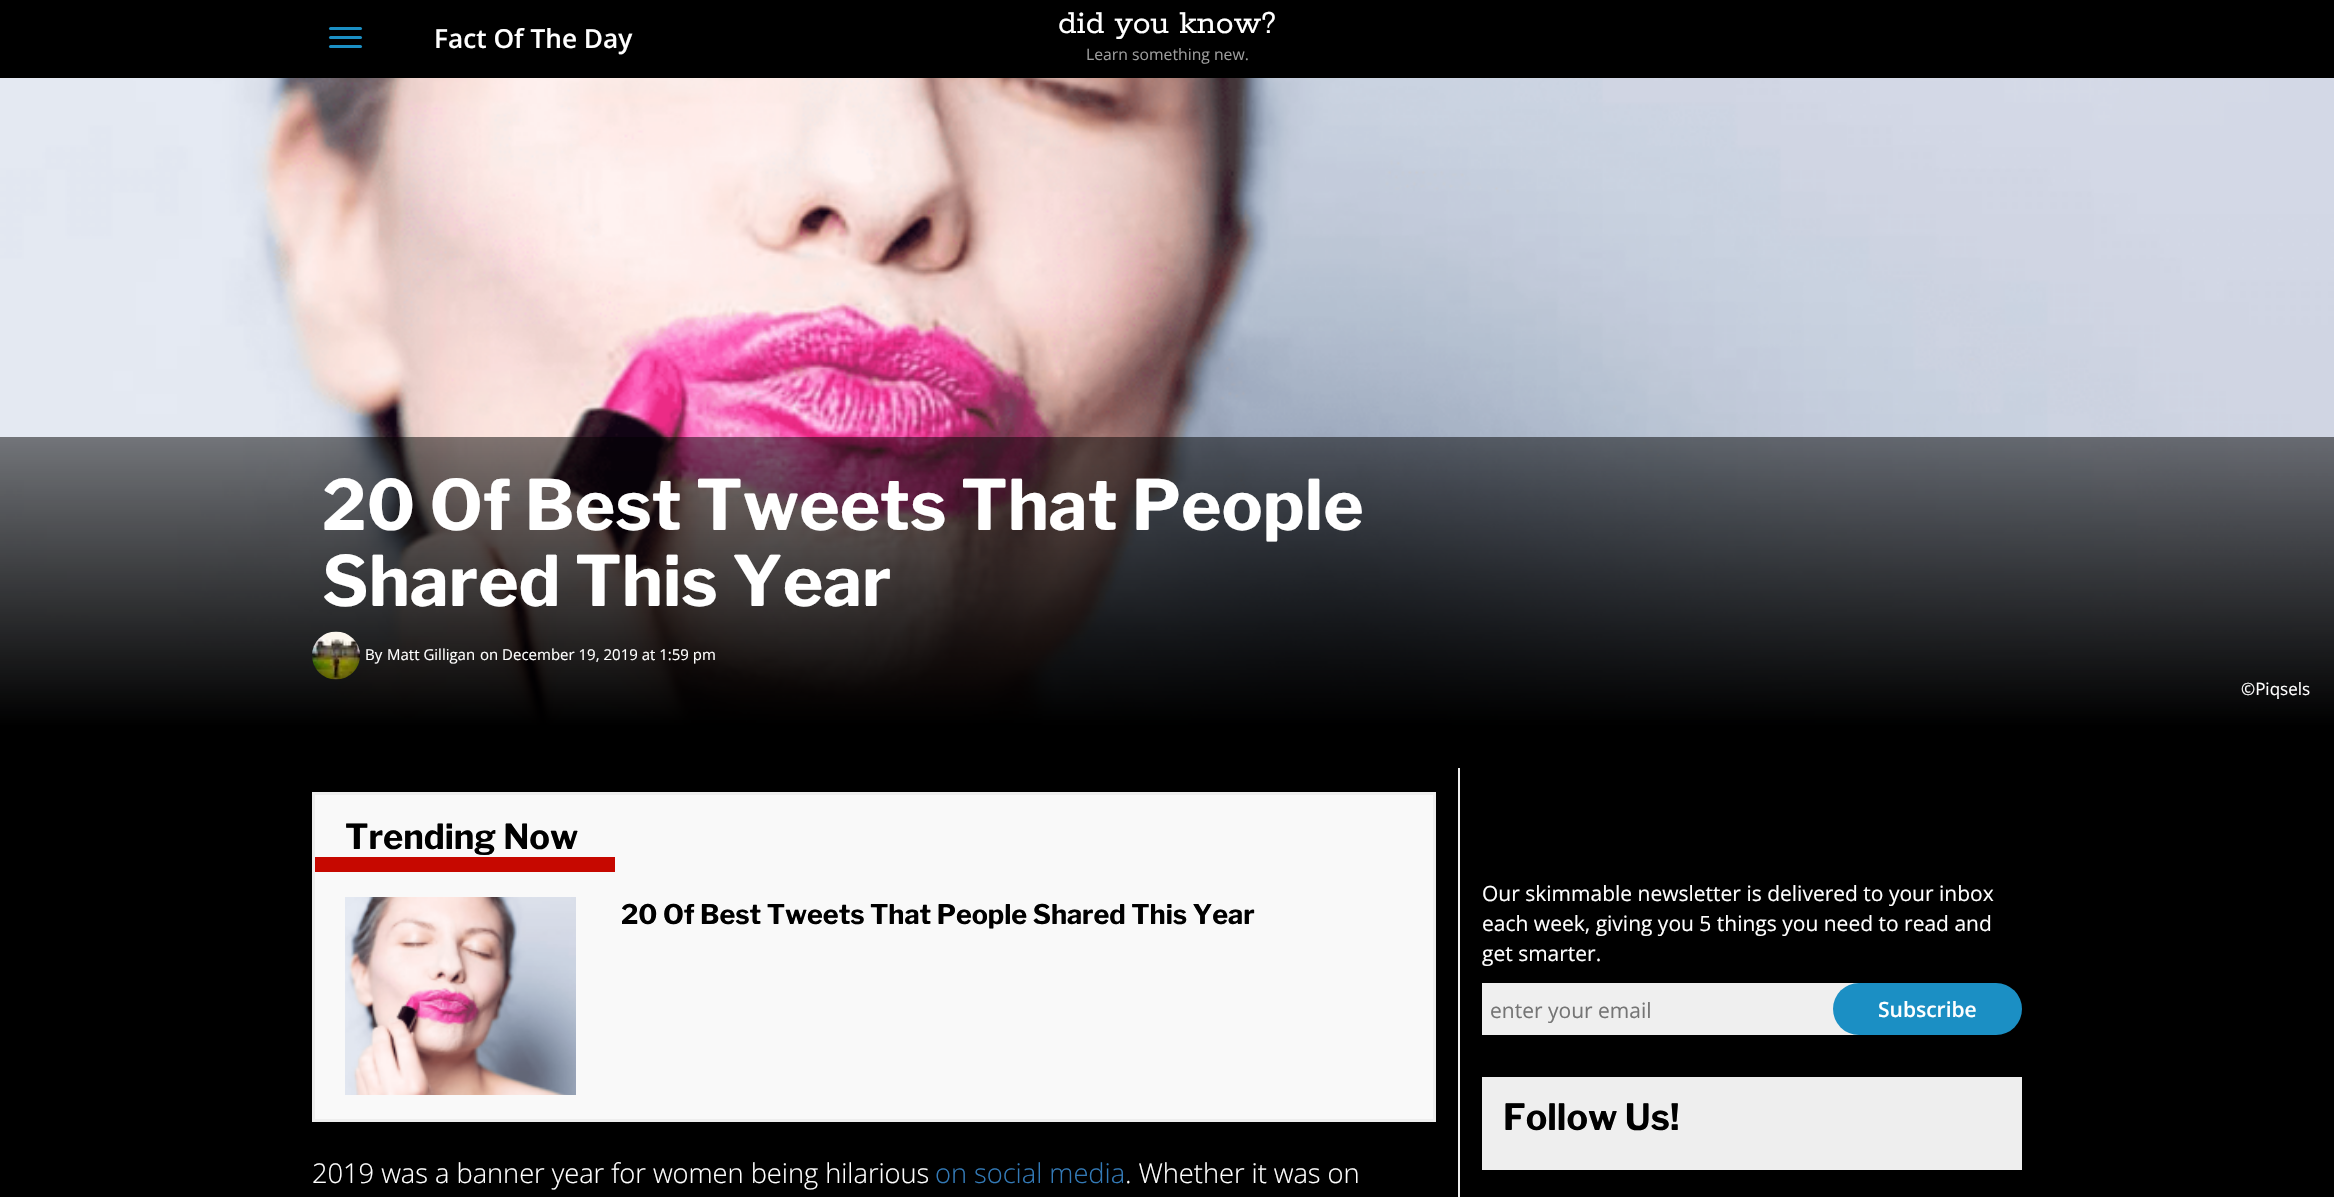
void draw(SkCanvas* c) {
SkPaint p;
p.setAntiAlias(true);
auto F=[&](const char* family, int weight, float size, bool italic = false){SkFontStyle style(weight, SkFontStyle::kNormal_Width,italic ? SkFontStyle::kItalic_Slant : SkFontStyle::kUpright_Slant);SkFont result(fontMgr->matchFamilyStyle(family, style), size);result.setSubpixel(true);return result;};
auto T=[&](const char* s, float x, float y, const SkFont& font){c->drawString(s, x, y, font, p);};
auto L=[&](const char* s, float x, float y, const SkFont& font, const SkPaint& ink, float letter, float word){std::vector<SkGlyphID> glyphs(font.countText(s, strlen(s), SkTextEncoding::kUTF8));std::vector<float> xs(glyphs.size());font.textToGlyphs(s, strlen(s), SkTextEncoding::kUTF8, glyphs);font.getXPos(glyphs, xs, x);float extra = 0;for (size_t i = 0; i < glyphs.size(); i++) {xs[i] += extra;extra += letter + word * (glyphs[i] == font.unicharToGlyph(' '));}c->drawTextBlob(SkTextBlob::MakeFromPosHGlyphs(glyphs, xs, y, font), 0, 0, ink);};
auto R=[&](float x, float y, float w, float h){c->drawRect(SkRect::MakeXYWH(x, y, w, h), p);};
auto Q=[&](float x, float y, float w, float h, float radius){c->drawRoundRect(SkRect::MakeXYWH(x, y, w, h), radius, radius, p);};
auto I=[&](const char* path, float x, float y, float w, float h){auto image = SkImages::DeferredFromEncodedData(SkData::MakeFromFileName(path));c->drawImageRect(image, SkRect::MakeXYWH(x, y, w, h), SkSamplingOptions());};
c->clear(0xff000000);
p.setColor(0xff1b8fc4);
Q(329,27,33,3,1.5);
Q(329,36,33,3,1.5);
Q(329,45,33,3,1.5);
auto f1 = F("Open Sans",600,26.25);
p.setColor(0xffffffff);
T("Fact Of The Day",434,48,f1);
auto f2 = F("Rokkitt",400,35.75);
T("did you know?",1058,33,f2);
auto f3 = F("Open Sans",400,15.75);
p.setColor(0xff9d9d9d);
T("Learn something new.",1086,60,f3);
I("1.png",0,78,2334,648);
auto f4 = F("Libre Franklin",700,69);
p.setColor(0xffffffff);
T("20 Of Best Tweets That People",322,530,f4);
T("Shared This Year",322,606,f4);
I("2.png",312,631,48,49);
auto f5 = F("Open Sans",400,15);
T("By",365,660,f5);
T("Matt Gilligan",387,660,f5);
T("on December 19, 2019 at 1:59 pm",480,660,f5);
auto f6 = F("Open Sans",400,17);
T("©Piqsels",2241,695,f6);
p.setColor(0xffeeeeee);
R(1458,768,2,429);
p.setColor(0xfff9f9f9);
c->drawRect(SkRect::MakeXYWH(313.5,793.5,1121,327),p);
p.setStroke(true);
p.setStrokeWidth(3);
p.setColor(0xffeeeeee);
c->drawRect(SkRect::MakeXYWH(313.5,793.5,1121,327),p);
auto f7 = F("Libre Franklin",700,34.5);
p.setStroke(false);
p.setColor(0xff000000);
L("Trending Now",345,849,f7,p,-.05,0);
p.setColor(0xffc60800);
R(315,857,300,15);
I("3.png",345,897,231,198);
auto f8 = F("Libre Franklin",700,27);
p.setColor(0xff000000);
L("20 Of Best Tweets That People Shared This Year",621,924,f8,p,-.05,0);
auto f9 = F("Open Sans",300,27.3);
p.setColor(0xffffffff);
L("2019 was a banner year for women being hilarious",312,1183,f9,p,-.05,0);
p.setColor(0xff337ab7);
L("on social media",935,1183,f9,p,-.05,0);
p.setColor(0xffffffff);
L(". Whether it was on",1125,1183,f9,p,-.05,0);
auto f10 = F("Open Sans",400,21);
T("Our skimmable newsletter is delivered to your inbox",1482,901,f10);
T("each week, giving you 5 things you need to read and",1482,931,f10);
T("get smarter.",1482,961,f10);
p.setColor(0xffefefef);
R(1482,983,377,52);
p.setColor(0xff757575);
T("enter your email",1490,1018,f10);
p.setColor(0xff1b8fc4);
Q(1833,983,189,52,26);
auto f11 = F("Open Sans",600,21);
p.setColor(0xffffffff);
T("Subscribe",1878,1017,f11);
p.setColor(0xffeeeeee);
R(1482,1077,540,93);
auto f12 = F("Libre Franklin",700,36);
p.setColor(0xff000000);
T("Follow Us!",1503,1130,f12);
}
